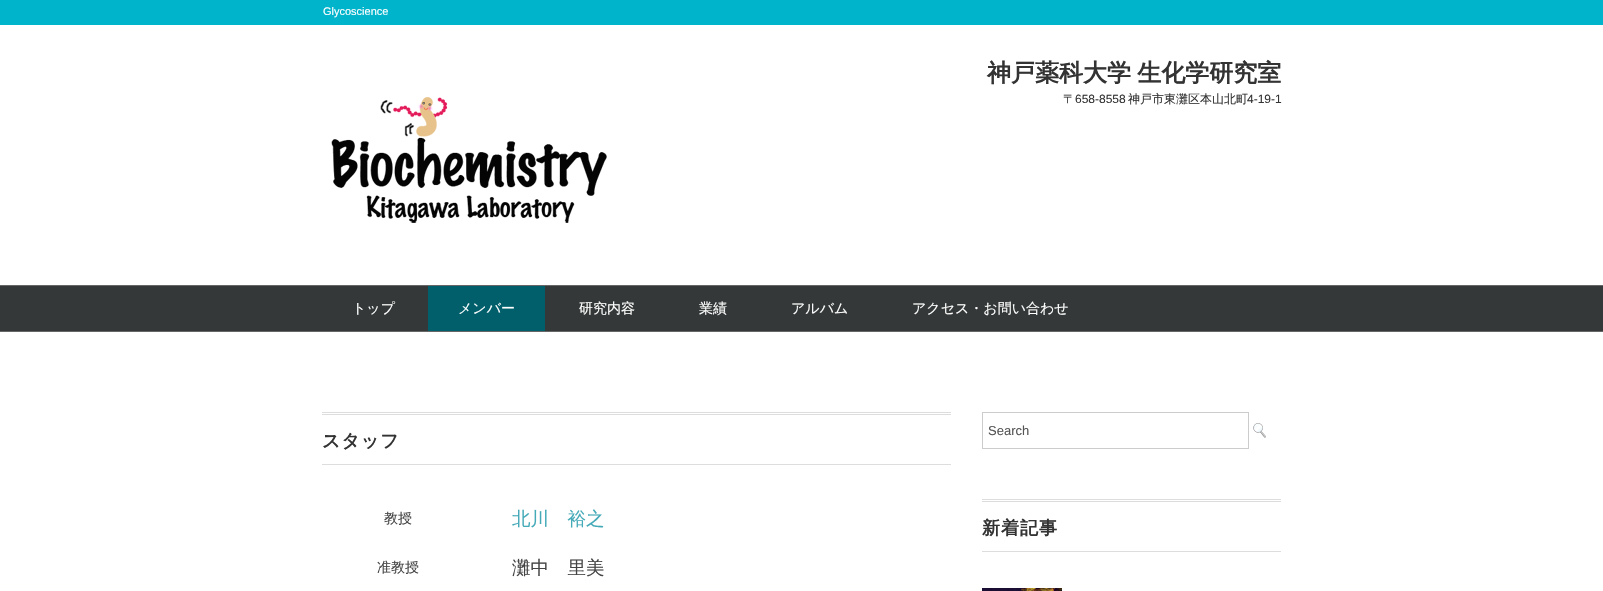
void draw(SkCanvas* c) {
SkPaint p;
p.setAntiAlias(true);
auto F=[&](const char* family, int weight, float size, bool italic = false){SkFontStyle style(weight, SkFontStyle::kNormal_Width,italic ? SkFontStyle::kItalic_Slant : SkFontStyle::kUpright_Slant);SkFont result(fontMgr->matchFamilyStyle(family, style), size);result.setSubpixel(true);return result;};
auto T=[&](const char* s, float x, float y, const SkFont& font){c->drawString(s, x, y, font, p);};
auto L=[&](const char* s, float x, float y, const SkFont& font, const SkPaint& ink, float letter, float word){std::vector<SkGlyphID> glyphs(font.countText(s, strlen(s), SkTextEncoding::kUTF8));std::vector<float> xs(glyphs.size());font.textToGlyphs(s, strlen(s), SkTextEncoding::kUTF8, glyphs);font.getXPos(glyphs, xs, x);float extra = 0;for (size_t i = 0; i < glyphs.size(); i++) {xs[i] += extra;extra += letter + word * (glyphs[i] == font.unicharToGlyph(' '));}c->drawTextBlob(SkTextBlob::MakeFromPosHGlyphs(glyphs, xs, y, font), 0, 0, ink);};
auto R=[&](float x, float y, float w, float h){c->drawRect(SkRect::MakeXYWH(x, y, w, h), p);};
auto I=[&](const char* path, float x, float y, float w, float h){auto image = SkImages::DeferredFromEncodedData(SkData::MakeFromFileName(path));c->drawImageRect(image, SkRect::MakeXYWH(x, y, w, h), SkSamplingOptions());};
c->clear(0xffffffff);
p.setColor(0xff00b4cc);
R(0,0,1603,25);
auto f1 = F("Liberation Sans",400,11);
p.setColor(0xffffffff);
T("Glycoscience",323,15,f1);
auto f2 = F("WenQuanYi Zen Hei",700,24);
p.setColor(0xff333333);
L("神戸薬科大学 生化学研究室",987,81,f2,p,0,-1);
auto f3 = F("WenQuanYi Zen Hei",500,12);
T("〒",1063,103,f3);
auto f4 = F("Liberation Sans",400,12);
T("658-8558",1075,103,f4);
T("神戸市東灘区本山北町",1128,103,f3);
T("4-19-1",1247,103,f4);
I("1.png",331,97,276,126);
p.setColor(0xff343838);
R(0,286,1603,45);
p.setColor(0xff666666);
R(0,285,1603,1);
R(0,331,1603,1);
auto f5 = F("WenQuanYi Zen Hei",500,14);
p.setColor(0xffffffff);
T("トップ",352,313,f5);
p.setColor(0xff005f6b);
R(428,286,117,45);
p.setColor(0xffffffff);
T("メンバー",458,313,f5);
T("研究内容",579,313,f5);
T("業績",699,313,f5);
T("アルバム",791,313,f5);
T("アクセス・お問い合わせ",912,313,f5);
p.setColor(0xffdddddd);
R(322,412,629,1);
R(322,414,629,1);
R(322,464,629,1);
auto f6 = F("WenQuanYi Zen Hei",700,18);
p.setColor(0xff333333);
L("スタッフ",322,447,f6,p,1,0);
p.setColor(0xff444444);
T("教授",384,523,f5);
auto f7 = F("WenQuanYi Zen Hei",500,18.5);
p.setColor(0xff45aab8);
T("北川　裕之",512,525,f7);
p.setColor(0xff444444);
T("准教授",377,572,f5);
T("灘中　里美",512,574,f7);
p.setStroke(true);
p.setStrokeWidth(1);
p.setColor(0xffcccccc);
c->drawRect(SkRect::MakeXYWH(982.5,412.5,266,36),p);
auto f8 = F("Liberation Sans",400,13);
p.setStroke(false);
p.setColor(0xff555555);
T("Search",988,435,f8);
I("2.png",1253,423,13,15);
p.setColor(0xffdddddd);
R(982,499,299,1);
R(982,501,299,1);
R(982,551,299,1);
p.setColor(0xff333333);
L("新着記事",982,534,f6,p,1,0);
I("3.png",982,588,80,3);
}
